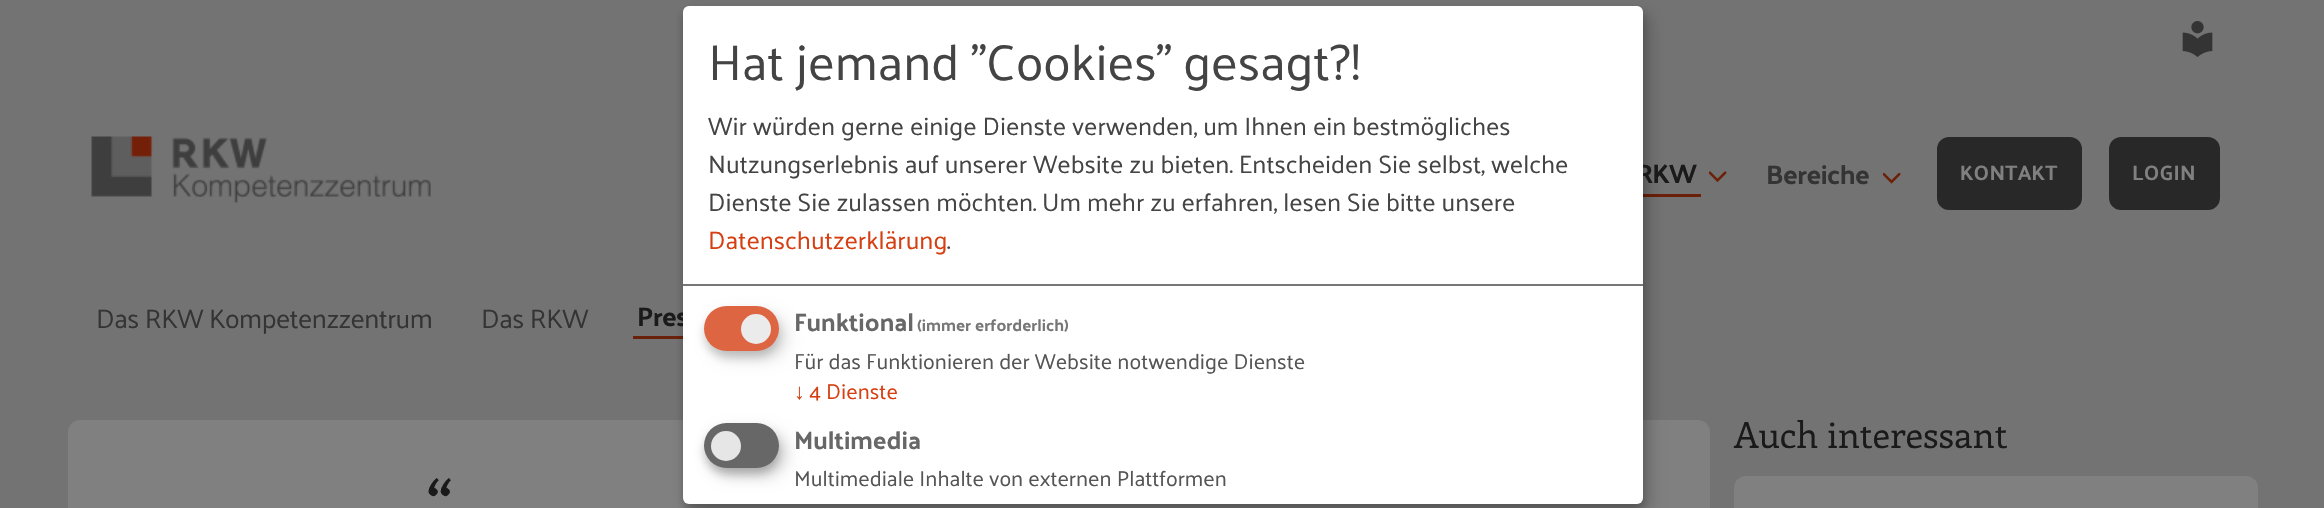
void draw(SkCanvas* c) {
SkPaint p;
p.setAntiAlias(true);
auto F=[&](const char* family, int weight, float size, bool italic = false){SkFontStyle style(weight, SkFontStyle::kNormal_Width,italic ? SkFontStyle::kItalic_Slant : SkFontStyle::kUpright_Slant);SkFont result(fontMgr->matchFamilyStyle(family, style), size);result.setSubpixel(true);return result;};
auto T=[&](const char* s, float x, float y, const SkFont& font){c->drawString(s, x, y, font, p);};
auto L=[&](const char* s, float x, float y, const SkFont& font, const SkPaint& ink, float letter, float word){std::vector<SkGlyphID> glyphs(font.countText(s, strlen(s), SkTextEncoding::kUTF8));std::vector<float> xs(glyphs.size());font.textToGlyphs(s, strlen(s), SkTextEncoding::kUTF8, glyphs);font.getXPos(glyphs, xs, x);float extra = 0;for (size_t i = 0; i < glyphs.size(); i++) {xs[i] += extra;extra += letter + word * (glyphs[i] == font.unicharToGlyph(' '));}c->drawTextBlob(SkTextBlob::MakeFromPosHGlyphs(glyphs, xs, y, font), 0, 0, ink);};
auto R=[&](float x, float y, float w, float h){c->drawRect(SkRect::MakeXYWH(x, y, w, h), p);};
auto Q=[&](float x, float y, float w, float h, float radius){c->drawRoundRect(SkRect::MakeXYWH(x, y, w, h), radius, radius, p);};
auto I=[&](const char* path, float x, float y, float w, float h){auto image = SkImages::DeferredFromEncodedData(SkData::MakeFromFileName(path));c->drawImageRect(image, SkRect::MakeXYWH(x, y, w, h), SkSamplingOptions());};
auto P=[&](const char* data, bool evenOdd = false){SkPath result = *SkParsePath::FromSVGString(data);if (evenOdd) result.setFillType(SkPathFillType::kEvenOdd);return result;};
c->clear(0xff737373);
p.setColor(0xff6b2009);
R(1643,194,58,3);
R(633,336,50,3);
p.setColor(0xff808080);
c->drawPath(P("M80 420h1618c6.5 0 12 5.5 12 12v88h-1642v-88c0-6.5 5.5-12 12-12z"),p);
p.setColor(0x30000000);
p.setMaskFilter(SkMaskFilter::MakeBlur(kNormal_SkBlurStyle, 7.5));
c->drawRoundRect(SkRect::MakeXYWH(690,14,960,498),6,6,p);
p.setMaskFilter(nullptr);
p.setColor(0x33000000);
p.setMaskFilter(SkMaskFilter::MakeBlur(kNormal_SkBlurStyle, 4.5));
c->drawRoundRect(SkRect::MakeXYWH(683,12,960,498),6,6,p);
p.setMaskFilter(nullptr);
auto f1 = F("Palanquin",700,27);
p.setColor(0xff1a1a1a);
L("RKW",1636,183,f1,p,-.5,0);
L("Pres",637,326,f1,p,-.5,0);
p.setColor(0xffffffff);
Q(683,6,960,498,6);
p.setColor(0xff777777);
R(683,284,960,2);
auto f2 = F("Palanquin",400,50.4);
p.setColor(0xff444444);
T("Hat jemand \"Cookies\" gesagt?!",708,80,f2);
auto f3 = F("Palanquin",400,25.2);
T("Wir würden gerne einige Dienste verwenden, um Ihnen ein bestmögliches",708,135,f3);
T("Nutzungserlebnis auf unserer Website zu bieten. Entscheiden Sie selbst, welche",708,173,f3);
T("Dienste Sie zulassen möchten.",708,211,f3);
T("Um mehr zu erfahren, lesen Sie bitte unsere",1042,211,f3);
p.setColor(0xffd63f11);
T("Datenschutzerklärung",708,249,f3);
p.setColor(0xff444444);
T(".",947,249,f3);
p.setColor(0x26000000);
p.setMaskFilter(SkMaskFilter::MakeBlur(kNormal_SkBlurStyle, 7.5));
c->drawRoundRect(SkRect::MakeXYWH(711,314,75,45),22.5,22.5,p);
p.setMaskFilter(nullptr);
p.setColor(0x33333333);
p.setMaskFilter(SkMaskFilter::MakeBlur(kNormal_SkBlurStyle, 4.5));
c->drawRoundRect(SkRect::MakeXYWH(704,312,75,45),22.5,22.5,p);
p.setMaskFilter(nullptr);
p.setColor(0xffde6541);
Q(704,306,75,45,22.5);
p.setColor(0xffebebeb);
c->drawCircle(756,329,15,p);
auto f4 = F("Palanquin",700,25.2);
p.setColor(0xff676767);
T("Funktional",794,331,f4);
auto f5 = F("Palanquin",700,16.75);
p.setColor(0xff777777);
T("(immer erforderlich)",917,331,f5);
auto f6 = F("Palanquin",400,21.6);
p.setColor(0xff555555);
T("Für das Funktionieren der Website notwendige Dienste",794,369,f6);
auto f7 = F("Liberation Sans",400,21.6);
p.setColor(0xffd63f11);
T("↓",794,399,f7);
T("4 Dienste",809,399,f6);
p.setColor(0x30000000);
p.setMaskFilter(SkMaskFilter::MakeBlur(kNormal_SkBlurStyle, 7.5));
c->drawRoundRect(SkRect::MakeXYWH(711,431,75,45),22.5,22.5,p);
p.setMaskFilter(nullptr);
p.setColor(0x33000000);
p.setMaskFilter(SkMaskFilter::MakeBlur(kNormal_SkBlurStyle, 4.5));
c->drawRoundRect(SkRect::MakeXYWH(704,429,75,45),22.5,22.5,p);
p.setMaskFilter(nullptr);
p.setColor(0xff676767);
Q(704,423,75,45,22.5);
p.setColor(0xffe6e6e6);
c->drawCircle(726,446,15,p);
p.setColor(0xff676767);
T("Multimedia",794,449,f4);
p.setColor(0xff555555);
T("Multimediale Inhalte von externen Plattformen",794,486,f6);
I("1.png",2182,21,31,36);
I("2.png",91,136,340,67);
I("3.png",1709,171,18,12);
p.setColor(0xff343434);
L("Bereiche",1766,184,f1,p,-.5,0);
I("4.png",1883,172,18,12);
p.setColor(0xff282828);
c->drawRoundRect(SkRect::MakeXYWH(1938.5,138.5,142,70),10.5,10.5,p);
p.setStroke(true);
p.setStrokeWidth(3);
c->drawRoundRect(SkRect::MakeXYWH(1938.5,138.5,142,70),10.5,10.5,p);
auto f8 = F("Palanquin",700,21);
p.setStroke(false);
p.setColor(0xff808080);
L("KONTAKT",1960,180,f8,p,.25,0);
p.setColor(0xff282828);
c->drawRoundRect(SkRect::MakeXYWH(2110.5,138.5,108,70),10.5,10.5,p);
p.setStroke(true);
c->drawRoundRect(SkRect::MakeXYWH(2110.5,138.5,108,70),10.5,10.5,p);
p.setStroke(false);
p.setColor(0xff808080);
L("LOGIN",2132,180,f8,p,.25,0);
auto f9 = F("Palanquin",400,27);
p.setColor(0xff343434);
L("Das RKW Kompetenzzentrum",96,328,f9,p,-.5,0);
L("Das RKW",481,328,f9,p,-.5,0);
auto f10 = F("Enriqueta",400,36);
p.setColor(0xff1a1a1a);
T("Auch interessant",1734,448,f10);
p.setColor(0xff808080);
Q(1734,476,524,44,12);
auto f11 = F("Enriqueta",400,72);
p.setColor(0xff1a1a1a);
T("“",427,529,f11);
}
